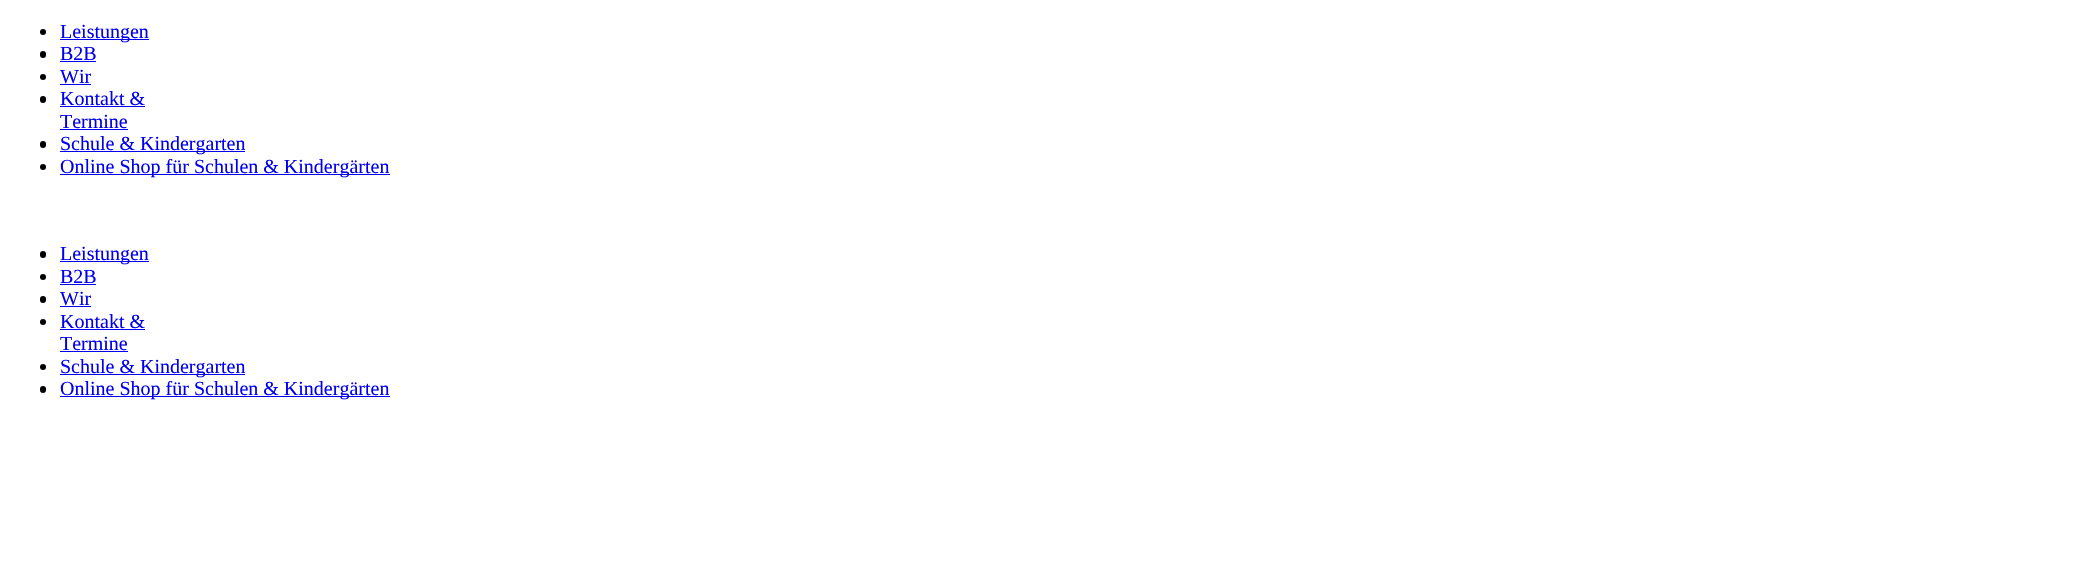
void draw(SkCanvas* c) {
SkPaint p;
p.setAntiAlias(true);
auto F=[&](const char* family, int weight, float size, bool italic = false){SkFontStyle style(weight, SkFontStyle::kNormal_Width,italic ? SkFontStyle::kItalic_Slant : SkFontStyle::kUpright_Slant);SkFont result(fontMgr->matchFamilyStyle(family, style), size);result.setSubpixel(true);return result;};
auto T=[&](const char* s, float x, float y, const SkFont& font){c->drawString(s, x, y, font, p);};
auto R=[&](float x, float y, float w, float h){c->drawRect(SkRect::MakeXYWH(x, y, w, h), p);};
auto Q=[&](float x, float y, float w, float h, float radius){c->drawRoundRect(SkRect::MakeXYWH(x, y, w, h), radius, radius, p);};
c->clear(0xffffffff);
p.setColor(0xff000000);
c->drawCircle(43,32,3,p);
p.setColor(0xff0000ee);
R(60,39,89,1);
auto f1 = F("Liberation Serif",400,20);
T("Leistungen",60,38,f1);
p.setColor(0xff000000);
Q(40,51,6,7,3);
p.setColor(0xff0000ee);
T("B2B",60,60,f1);
R(60,61,36,1);
p.setColor(0xff000000);
c->drawCircle(43,77,3,p);
p.setColor(0xff0000ee);
T("Wir",60,83,f1);
R(60,84,31,1);
p.setColor(0xff000000);
Q(40,96,6,7,3);
p.setColor(0xff0000ee);
T("Kontakt &",60,105,f1);
R(60,106,85,1);
T("Termine",60,128,f1);
R(60,129,68,1);
p.setColor(0xff000000);
Q(40,141,6,7,3);
p.setColor(0xff0000ee);
R(60,151,185,1);
T("Schule & Kindergarten",60,150,f1);
p.setColor(0xff000000);
c->drawCircle(43,167,3,p);
p.setColor(0xff0000ee);
R(60,174,330,1);
T("Online Shop für Schulen & Kindergärten",60,173,f1);
p.setColor(0xff000000);
Q(40,251,6,7,3);
p.setColor(0xff0000ee);
R(60,261,89,1);
T("Leistungen",60,260,f1);
p.setColor(0xff000000);
c->drawCircle(43,277,3,p);
p.setColor(0xff0000ee);
T("B2B",60,283,f1);
R(60,284,36,1);
p.setColor(0xff000000);
Q(40,296,6,7,3);
p.setColor(0xff0000ee);
T("Wir",60,305,f1);
R(60,306,31,1);
p.setColor(0xff000000);
c->drawCircle(43,322,3,p);
p.setColor(0xff0000ee);
T("Kontakt &",60,328,f1);
R(60,329,85,1);
T("Termine",60,350,f1);
R(60,351,68,1);
p.setColor(0xff000000);
c->drawCircle(43,367,3,p);
p.setColor(0xff0000ee);
R(60,374,185,1);
T("Schule & Kindergarten",60,373,f1);
p.setColor(0xff000000);
Q(40,386,6,7,3);
p.setColor(0xff0000ee);
R(60,396,330,1);
T("Online Shop für Schulen & Kindergärten",60,395,f1);
}
